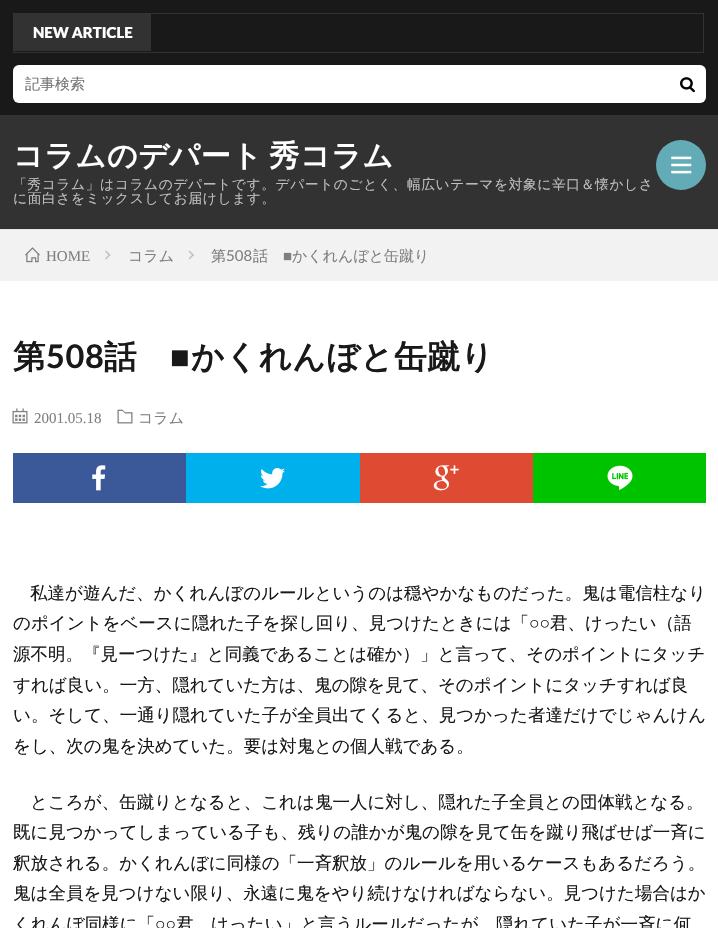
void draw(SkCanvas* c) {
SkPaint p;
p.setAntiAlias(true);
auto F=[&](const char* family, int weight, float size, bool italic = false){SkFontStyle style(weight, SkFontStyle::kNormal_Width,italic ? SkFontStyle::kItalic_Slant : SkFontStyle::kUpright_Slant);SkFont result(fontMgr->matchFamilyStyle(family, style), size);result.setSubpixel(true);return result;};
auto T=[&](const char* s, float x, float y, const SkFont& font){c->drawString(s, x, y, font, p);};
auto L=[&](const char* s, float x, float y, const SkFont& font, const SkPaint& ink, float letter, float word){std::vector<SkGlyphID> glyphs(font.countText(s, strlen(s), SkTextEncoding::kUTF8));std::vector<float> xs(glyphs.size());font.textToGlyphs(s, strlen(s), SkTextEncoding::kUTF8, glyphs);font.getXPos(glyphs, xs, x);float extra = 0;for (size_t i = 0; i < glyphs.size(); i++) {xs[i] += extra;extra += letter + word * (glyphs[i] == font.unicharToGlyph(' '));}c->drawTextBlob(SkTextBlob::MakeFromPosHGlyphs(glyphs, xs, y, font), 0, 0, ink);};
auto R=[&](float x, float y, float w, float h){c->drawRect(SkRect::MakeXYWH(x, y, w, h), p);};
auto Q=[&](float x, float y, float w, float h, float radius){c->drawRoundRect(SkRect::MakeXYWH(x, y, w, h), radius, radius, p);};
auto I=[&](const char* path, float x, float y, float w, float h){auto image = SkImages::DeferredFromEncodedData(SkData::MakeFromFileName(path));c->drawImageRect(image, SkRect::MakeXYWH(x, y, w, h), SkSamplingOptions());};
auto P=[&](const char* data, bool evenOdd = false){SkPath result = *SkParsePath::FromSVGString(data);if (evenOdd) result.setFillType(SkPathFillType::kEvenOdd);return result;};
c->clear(0xff323232);
p.setColor(0xff191919);
R(0,0,718,115);
p.setStroke(true);
p.setStrokeWidth(1);
p.setColor(0xff323232);
c->drawRect(SkRect::MakeXYWH(13.5,13.5,690,39),p);
p.setStroke(false);
R(14,14,137,37);
auto f1 = F("Lato",900,15);
p.setColor(0xffffffff);
T("NEW ARTICLE",33,38,f1);
Q(13,65,693,38,6);
auto f2 = F("WenQuanYi Zen Hei",500,15);
p.setColor(0xff757575);
T("記事検索",25,89,f2);
I("1.png",680,77,15,16);
p.setColor(0xffe5e5e5);
R(0,229,718,1);
auto f3 = F("WenQuanYi Zen Hei",700,30);
p.setColor(0xffffffff);
L("コラムのデパート 秀コラム",13,166,f3,p,.6,-3);
auto f4 = F("WenQuanYi Zen Hei",500,13.75);
p.setColor(0xffbfbfbf);
L("「秀コラム」はコラムのデパートです。デパートのごとく、幅広いテーマを対象に辛口＆懐かしさ",13,189,f4,p,.6,0);
L("に面白さをミックスしてお届けします。",13,203,f4,p,.6,0);
p.setColor(0xff63acb7);
c->drawCircle(681,165,25,p);
I("2.png",671,156,21,18);
p.setColor(0xffffffff);
R(0,281,718,647);
p.setColor(0xfff2f2f2);
R(0,230,718,51);
I("3.png",25,247,15,16);
auto f5 = F("Liberation Serif",400,15);
p.setColor(0xff7f7f7f);
T("HOME",46,261,f5);
p.setColor(0xffbfbfbf);
c->drawPath(P("M106 250.5l4.5 4.5l-1 1l-4.5-4.5z"),p);
c->drawPath(P("M109.5 254l1 1l-4.5 4.5l-1-1z"),p);
p.setColor(0xff7f7f7f);
T("コラム",128,261,f2);
p.setColor(0xffbfbfbf);
c->drawPath(P("M189.5 250.5l4.5 4.5l-1 1l-4.5-4.5z"),p);
c->drawPath(P("M193 254l1 1l-4.5 4.5l-1-1z"),p);
p.setColor(0xff7f7f7f);
T("第",211,261,f2);
auto f6 = F("Lato",400,15);
T("508",226,261,f6);
T("話",253,261,f2);
T("■",283,261,f5);
T("かくれんぼと缶蹴り",292,261,f2);
auto f7 = F("WenQuanYi Zen Hei",700,32.5);
p.setColor(0xff191919);
L("第",13,368,f7,p,.6,0);
auto f8 = F("Lato",700,32.5);
L("508",46,368,f8,p,.6,0);
L("話",104,368,f7,p,.6,0);
auto f9 = F("Liberation Serif",700,32.5);
L("■",170,368,f9,p,.6,0);
L("かくれんぼと缶蹴り",191,368,f7,p,.6,0);
I("4.png",12,408,16,16);
p.setColor(0xff7f7f7f);
T("2001.05.18",34,423,f5);
I("5.png",117,409,16,15);
T("コラム",138,423,f2);
p.setColor(0xff3b5998);
R(13,453,173,50);
I("6.png",92,465,14,26);
p.setColor(0xff00b0ed);
R(186,453,174,50);
I("7.png",260,468,25,21);
p.setColor(0xffdf4a32);
R(360,453,173,50);
I("8.png",433,465,26,26);
p.setColor(0xff00c300);
R(533,453,173,50);
I("9.png",607,465,26,25);
auto f10 = F("WenQuanYi Zen Hei",500,17.5);
p.setColor(0xff191919);
T("私達が遊んだ、かくれんぼのルールというのは穏やかなものだった。鬼は電信柱なり",30,599,f10);
T("のポイントをベースに隠れた子を探し回り、見つけたときには「",13,629,f10);
auto f11 = F("Liberation Serif",400,17.5);
T("○○",529,629,f11);
T("君、けったい（語",550,629,f10);
T("源不明。『見ーつけた』と同義であることは確か）」と言って、そのポイントにタッチ",13,660,f10);
T("すれば良い。一方、隠れていた方は、鬼の隙を見て、そのポイントにタッチすれば良",13,691,f10);
T("い。そして、一通り隠れていた子が全員出てくると、見つかった者達だけでじゃんけん",13,721,f10);
T("をし、次の鬼を決めていた。要は対鬼との個人戦である。",13,752,f10);
T("ところが、缶蹴りとなると、これは鬼一人に対し、隠れた子全員との団体戦となる。",30,808,f10);
T("既に見つかってしまっている子も、残りの誰かが鬼の隙を見て缶を蹴り飛ばせば一斉に",13,838,f10);
T("釈放される。かくれんぼに同様の「一斉釈放」のルールを用いるケースもあるだろう。",13,869,f10);
T("鬼は全員を見つけない限り、永遠に鬼をやり続けなければならない。見つけた場合はか",13,899,f10);
T("くれんぼ同様に「",13,930,f10);
T("○○",155,930,f11);
T("君、けったい」と言うルールだったが、隠れていた子が一斉に何",176,930,f10);
}
